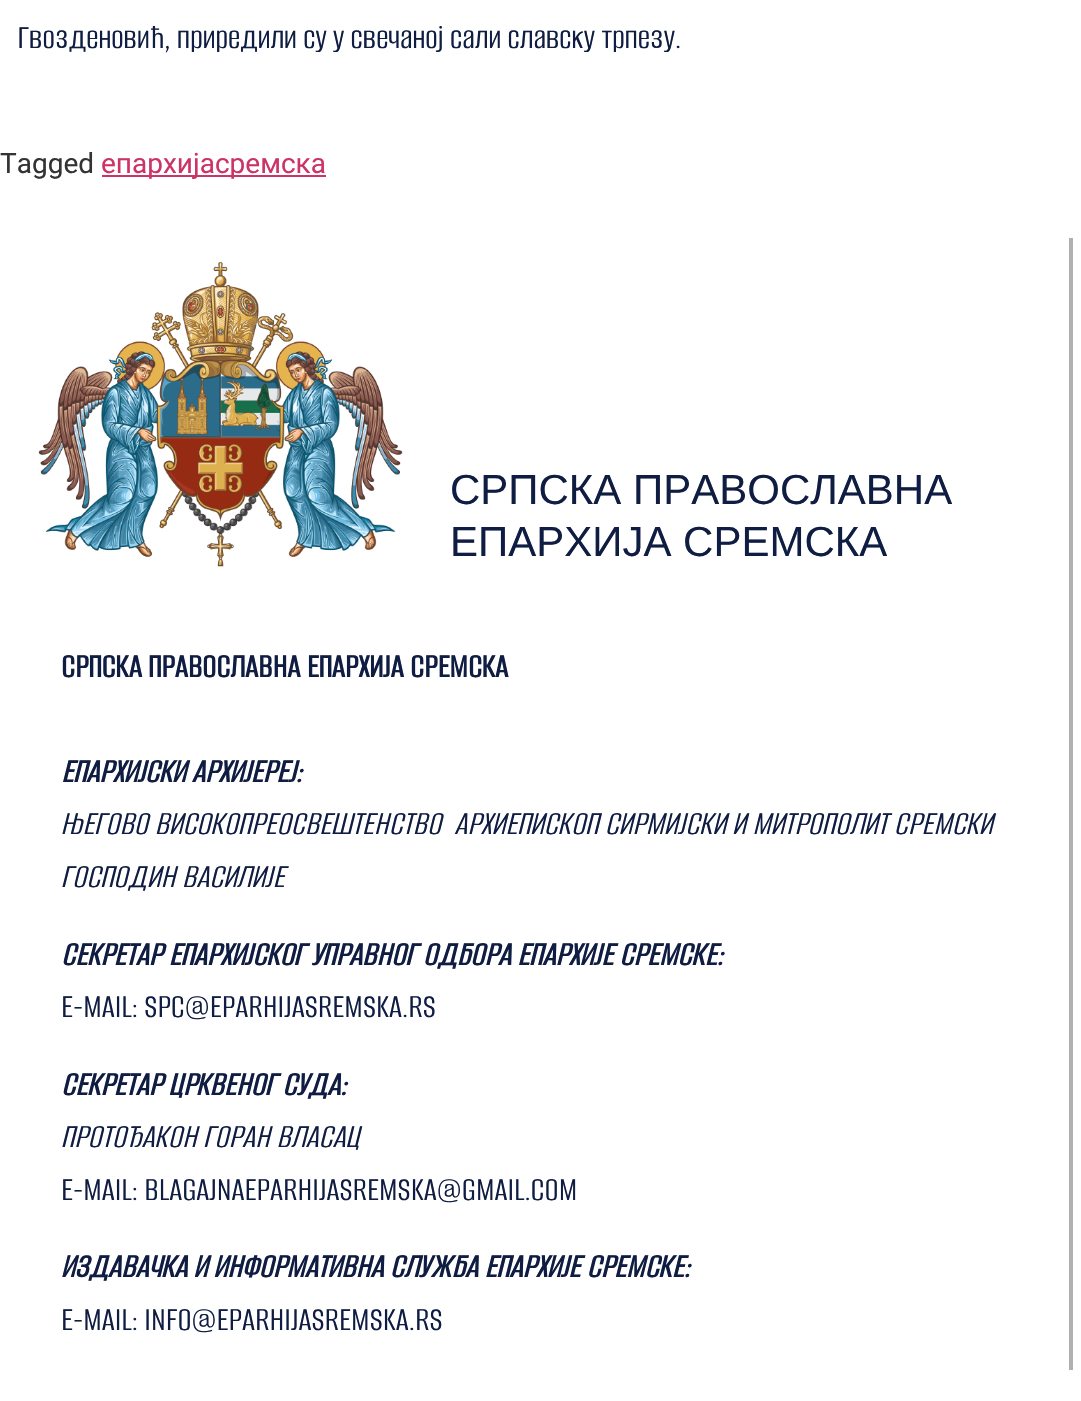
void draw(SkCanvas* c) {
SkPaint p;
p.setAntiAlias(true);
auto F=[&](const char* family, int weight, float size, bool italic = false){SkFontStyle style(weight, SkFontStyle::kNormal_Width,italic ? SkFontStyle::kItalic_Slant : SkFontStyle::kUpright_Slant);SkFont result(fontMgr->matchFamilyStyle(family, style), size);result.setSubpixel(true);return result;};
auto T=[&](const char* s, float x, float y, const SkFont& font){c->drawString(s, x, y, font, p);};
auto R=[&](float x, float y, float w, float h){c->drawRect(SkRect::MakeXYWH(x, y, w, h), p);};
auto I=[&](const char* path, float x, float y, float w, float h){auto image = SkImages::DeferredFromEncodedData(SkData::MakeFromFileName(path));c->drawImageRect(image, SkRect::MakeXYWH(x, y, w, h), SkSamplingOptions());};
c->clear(0xffffffff);
auto f1 = F("Alumni Sans",400,35);
p.setColor(0xff101d42);
T("Гвозденовић, приредили су у свечаној сали славску трпезу.",18,48,f1);
auto f2 = F("Roboto",400,28);
p.setColor(0xff333333);
T("Tagged",0,173,f2);
p.setColor(0xffcc3366);
R(102,175,224,2);
T("епархијасремска",101,173,f2);
p.setColor(0xffb0b0b0);
R(1069,238,4,1132);
I("1.png",38,261,365,306);
auto f3 = F("Liberation Sans",400,42);
p.setColor(0xff101d42);
T("СРПСКА ПРАВОСЛАВНА",450,504,f3);
T("ЕПАРХИЈА СРЕМСКА",450,556,f3);
auto f4 = F("Alumni Sans",700,35);
T("СРПСКА ПРАВОСЛАВНА ЕПАРХИЈА СРЕМСКА",61,677,f4);
auto f5 = F("Alumni Sans",700,35,true);
T("ЕПАРХИЈСКИ АРХИЈЕРЕЈ:",61,782,f5);
auto f6 = F("Alumni Sans",400,35,true);
T("ЊЕГОВО ВИСОКОПРЕОСВЕШТЕНСТВО  АРХИЕПИСКОП СИРМИЈСКИ И МИТРОПОЛИТ СРЕМСКИ",61,834,f6);
T("ГОСПОДИН ВАСИЛИЈЕ",61,887,f6);
T("СЕКРЕТАР ЕПАРХИЈСКОГ УПРАВНОГ ОДБОРА ЕПАРХИЈЕ СРЕМСКЕ:",61,965,f5);
T("E-MAIL: SPC@EPARHIJASREMSKA.RS",61,1017,f1);
T("СЕКРЕТАР ЦРКВЕНОГ СУДА:",61,1095,f5);
T("ПРОТОЂАКОН ГОРАН ВЛАСАЦ",61,1147,f6);
T("E-MAIL: BLAGAJNAEPARHIJASREMSKA@GMAIL.COM",61,1200,f1);
T("ИЗДАВАЧКА И ИНФОРМАТИВНА СЛУЖБА ЕПАРХИЈЕ СРЕМСКЕ:",61,1277,f5);
T("E-MAIL: INFO@EPARHIJASREMSKA.RS",61,1330,f1);
}
